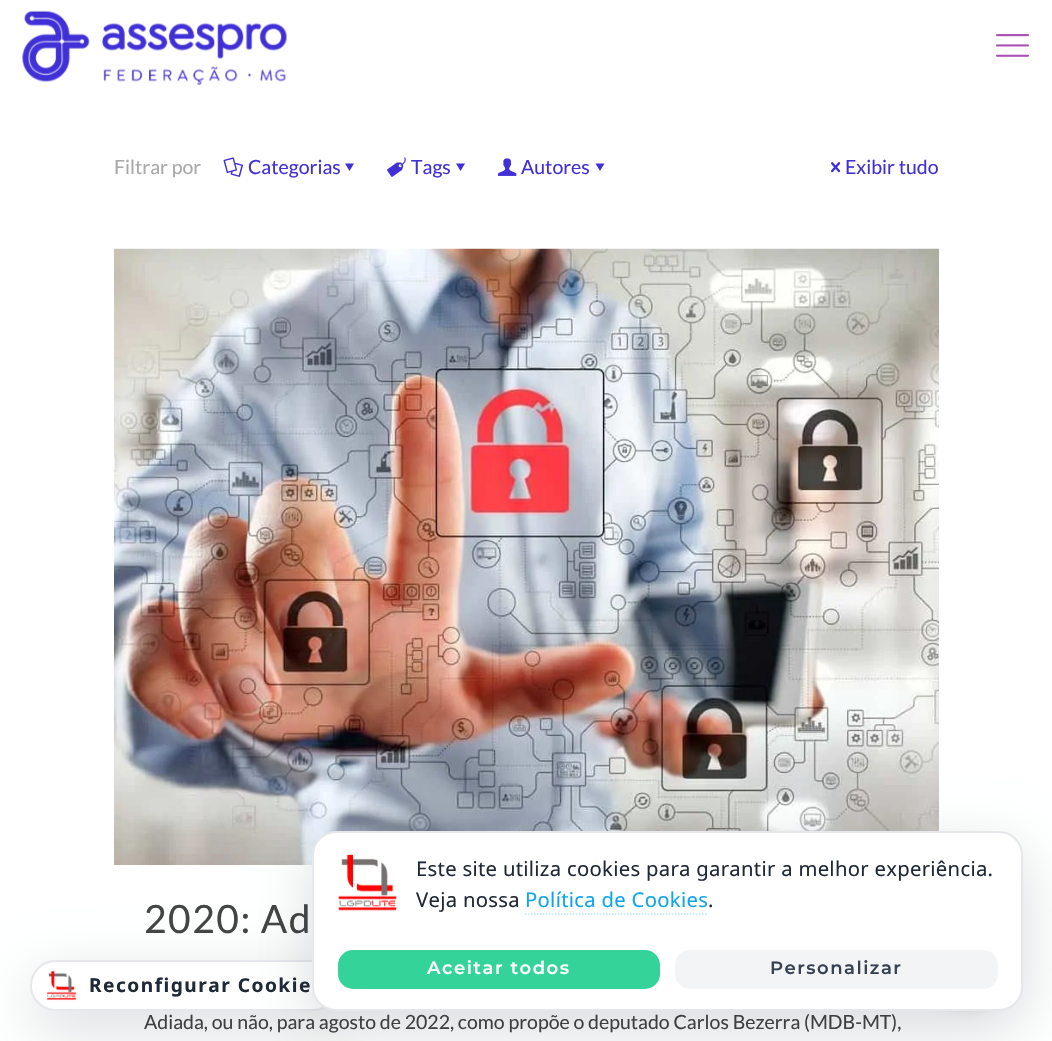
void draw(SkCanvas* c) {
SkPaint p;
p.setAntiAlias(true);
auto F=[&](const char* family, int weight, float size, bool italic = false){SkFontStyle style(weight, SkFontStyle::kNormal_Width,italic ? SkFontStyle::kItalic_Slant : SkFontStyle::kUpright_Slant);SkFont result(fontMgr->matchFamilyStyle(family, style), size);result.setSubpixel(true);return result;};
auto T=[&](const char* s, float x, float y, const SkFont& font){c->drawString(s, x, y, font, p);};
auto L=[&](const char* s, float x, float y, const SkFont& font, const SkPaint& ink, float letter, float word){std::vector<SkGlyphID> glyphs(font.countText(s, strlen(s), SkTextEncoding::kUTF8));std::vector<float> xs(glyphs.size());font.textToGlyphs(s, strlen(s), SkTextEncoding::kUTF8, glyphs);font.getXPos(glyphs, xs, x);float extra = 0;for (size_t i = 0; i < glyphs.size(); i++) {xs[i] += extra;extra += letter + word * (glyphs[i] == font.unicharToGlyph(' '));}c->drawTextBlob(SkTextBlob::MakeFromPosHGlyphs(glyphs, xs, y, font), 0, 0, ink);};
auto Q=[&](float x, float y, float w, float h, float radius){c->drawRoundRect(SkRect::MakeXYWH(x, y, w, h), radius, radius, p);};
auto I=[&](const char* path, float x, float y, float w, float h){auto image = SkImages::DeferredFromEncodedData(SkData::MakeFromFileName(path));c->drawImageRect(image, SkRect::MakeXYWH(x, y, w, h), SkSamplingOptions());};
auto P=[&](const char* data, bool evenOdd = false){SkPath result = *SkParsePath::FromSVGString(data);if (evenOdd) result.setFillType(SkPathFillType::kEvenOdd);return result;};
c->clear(0xffffffff);
I("1.png",22,10,265,75);
I("2.png",996,34,33,23);
auto f1 = F("Lato",400,19.5);
p.setColor(0xffa8a8a8);
T("Filtrar por",114,174,f1);
I("3.png",223,157,20,20);
p.setColor(0xff4030d6);
T("Categorias",248,174,f1);
c->drawPath(P("M354 163.5l-4.5 7.5l-4.5-7.5z"),p);
I("4.png",387,157,19,20);
T("Tags",411,174,f1);
c->drawPath(P("M465 163.5l-4.5 7.5l-4.5-7.5z"),p);
I("5.png",498,158,19,18);
T("Autores",521,174,f1);
c->drawPath(P("M604.5 163.5l-4.5 7.5l-4.5-7.5z"),p);
I("6.png",831,162,10,11);
T("Exibir tudo",845,174,f1);
I("7.png",114,248,825,617);
auto f2 = F("Lato",400,39);
p.setColor(0xff444444);
L("2020: Ad",144,933,f2,p,1.5,0);
T("Adiada, ou não, para agosto de 2022, como propõe o deputado Carlos Bezerra (MDB-MT),",144,1029,f1);
p.setColor(0x26020617);
p.setMaskFilter(SkMaskFilter::MakeBlur(kNormal_SkBlurStyle, 30));
c->drawRoundRect(SkRect::MakeXYWH(30,978,309,51),25.5,25.5,p);
p.setMaskFilter(nullptr);
p.setColor(0xffffffff);
c->drawRoundRect(SkRect::MakeXYWH(31,961,307,49),24.5,24.5,p);
p.setStroke(true);
p.setStrokeWidth(2);
p.setColor(0xffe5e7eb);
c->drawRoundRect(SkRect::MakeXYWH(31,961,307,49),24.5,24.5,p);
p.setStroke(false);
p.setColor(0x26020617);
p.setMaskFilter(SkMaskFilter::MakeBlur(kNormal_SkBlurStyle, 30));
c->drawRoundRect(SkRect::MakeXYWH(312,849,711,180),24,24,p);
p.setMaskFilter(nullptr);
p.setColor(0x24000000);
p.setMaskFilter(SkMaskFilter::MakeBlur(kNormal_SkBlurStyle, 6));
c->drawRoundRect(SkRect::MakeXYWH(921,918,90,90),45,45,p);
p.setMaskFilter(nullptr);
p.setColor(0xffffffff);
c->drawRoundRect(SkRect::MakeXYWH(313,832,709,178),23,23,p);
p.setStroke(true);
p.setColor(0xffe5e7eb);
c->drawRoundRect(SkRect::MakeXYWH(313,832,709,178),23,23,p);
I("8.png",338,854,59,57);
auto f3 = F("Noto Sans",400,20.25);
p.setStroke(false);
p.setColor(0xff1f2937);
L("Este site utiliza cookies para garantir a melhor experiência.",416,876,f3,p,.3,0);
L("Veja nossa",416,907,f3,p,.3,0);
p.setColor(0xff0ea5e9);
L("Política de Cookies",525,907,f3,p,.3,0);
p.setStroke(true);
p.setStrokeWidth(1.5);
p.setColor(0xffbae6fd);
p.setPathEffect(SkDashPathEffect::Make({{1.5f,1.5f}}, 0));
c->drawPath(P("M525 914h183"),p);
p.setPathEffect(nullptr);
p.setStroke(false);
p.setColor(0xff1f2937);
L(".",708,907,f3,p,.3,0);
p.setColor(0xff34d399);
Q(338,950,322,39,15);
auto f4 = F("Montserrat",600,18);
p.setColor(0xffffffff);
L("Aceitar todos",427,974,f4,p,1.5,0);
p.setColor(0xfff3f4f6);
Q(675,950,323,39,15);
p.setColor(0xff374151);
L("Personalizar",770,974,f4,p,1.5,0);
I("9.png",46,970,31,31);
auto f5 = F("Noto Sans",700,19.1);
p.setColor(0xff1f2937);
L("Reconfigurar Cookie",89,992,f5,p,1.5,0);
}
